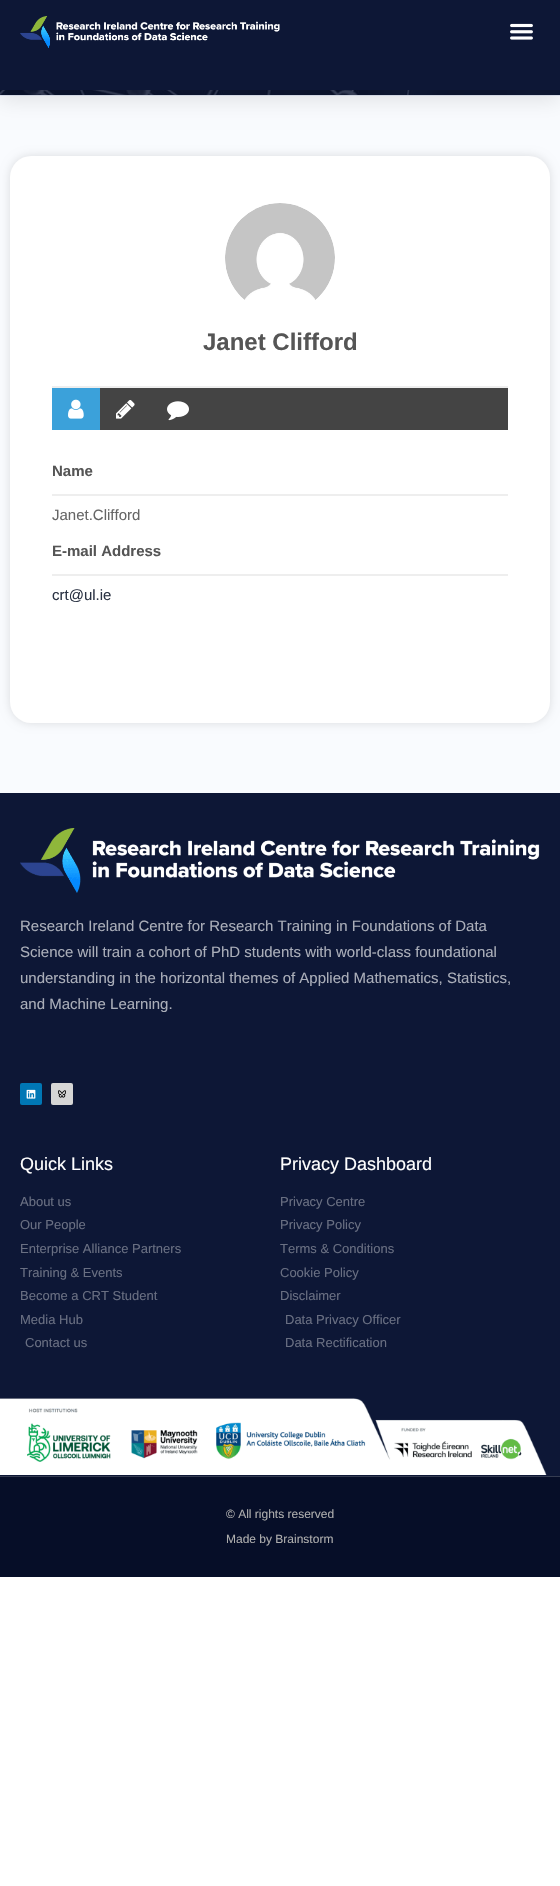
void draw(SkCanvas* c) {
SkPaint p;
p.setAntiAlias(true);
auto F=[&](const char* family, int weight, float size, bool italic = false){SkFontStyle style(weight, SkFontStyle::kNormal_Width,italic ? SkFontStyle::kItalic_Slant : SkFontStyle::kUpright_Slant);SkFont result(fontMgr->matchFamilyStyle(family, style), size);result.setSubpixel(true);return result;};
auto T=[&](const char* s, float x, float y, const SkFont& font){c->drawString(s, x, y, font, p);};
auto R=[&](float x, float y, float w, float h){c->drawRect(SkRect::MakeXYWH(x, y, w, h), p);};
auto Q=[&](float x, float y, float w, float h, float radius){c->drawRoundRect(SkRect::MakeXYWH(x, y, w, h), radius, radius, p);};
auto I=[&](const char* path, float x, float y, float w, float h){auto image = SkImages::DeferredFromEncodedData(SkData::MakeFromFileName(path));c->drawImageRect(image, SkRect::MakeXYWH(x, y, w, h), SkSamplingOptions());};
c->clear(0xffffffff);
I("3.png",0,90,560,5);
p.setColor(0xfff9fbfe);
R(0,96,560,697);
p.setColor(0xffe1e6f2);
R(0,95,560,1);
p.setColor(0x1a000000);
p.setMaskFilter(SkMaskFilter::MakeBlur(kNormal_SkBlurStyle, 10));
c->drawRect(SkRect::MakeXYWH(0,10,560,90),p);
p.setMaskFilter(nullptr);
p.setColor(0xff0d1736);
R(0,0,560,90);
I("1.png",20,16,260,32);
I("2.png",510,23,23,17);
p.setColor(0x1f000000);
p.setMaskFilter(SkMaskFilter::MakeBlur(kNormal_SkBlurStyle, 5));
c->drawRoundRect(SkRect::MakeXYWH(10,156,540,567),21,21,p);
p.setMaskFilter(nullptr);
p.setColor(0xffffffff);
Q(10,156,540,567,21);
p.setColor(0xffeeeeee);
R(52,386,456,2);
I("4.png",225,203,110,97);
auto f1 = F("Liberation Sans",700,24);
p.setColor(0xff555555);
T("Janet Clifford",203,350,f1);
p.setColor(0xff444444);
R(100,388,408,42);
p.setColor(0xff3ba1da);
R(52,388,48,42);
I("5.png",68,399,16,20);
I("6.png",116,400,19,19);
I("7.png",167,401,22,20);
p.setColor(0xffeeeeee);
R(52,494,456,2);
auto f2 = F("Liberation Sans",700,15);
p.setColor(0xff555555);
T("Name",52,476,f2);
auto f3 = F("Liberation Sans",400,15);
p.setColor(0xff666666);
T("Janet.Clifford",52,520,f3);
p.setColor(0xffeeeeee);
R(52,574,456,2);
p.setColor(0xff555555);
T("E-mail Address",52,556,f2);
p.setColor(0xff2b3344);
T("crt@ul.ie",52,600,f3);
p.setColor(0xff0d1736);
R(0,793,560,683);
I("8.png",20,828,520,65);
p.setColor(0xffaaaeb9);
T("Research Ireland Centre for Research Training in Foundations of Data",20,931,f3);
T("Science will train a cohort of PhD students with world-class foundational",20,957,f3);
T("understanding in the horizontal themes of Applied Mathematics, Statistics,",20,983,f3);
T("and Machine Learning.",20,1009,f3);
p.setColor(0xff0077b5);
Q(20,1083,22,22,2);
I("9.png",26,1089,10,10);
p.setColor(0xffd6d6d6);
Q(51,1083,22,22,2);
I("10.png",58,1090,8,8);
auto f4 = F("Liberation Sans",400,18);
p.setColor(0xffffffff);
T("Quick Links",20,1170,f4);
auto f5 = F("Liberation Sans",400,13);
p.setColor(0xff696f82);
T("About us",20,1206,f5);
T("Our People",20,1229,f5);
T("Enterprise Alliance Partners",20,1253,f5);
T("Training & Events",20,1277,f5);
T("Become a CRT Student",20,1300,f5);
T("Media Hub",20,1324,f5);
T("Contact us",25,1347,f5);
p.setColor(0xffffffff);
T("Privacy Dashboard",280,1170,f4);
p.setColor(0xff696f82);
T("Privacy Centre",280,1206,f5);
T("Privacy Policy",280,1229,f5);
T("Terms & Conditions",280,1253,f5);
T("Cookie Policy",280,1277,f5);
T("Disclaimer",280,1300,f5);
T("Data Privacy Officer",285,1324,f5);
T("Data Rectification",285,1347,f5);
I("11.png",0,1398,547,77);
p.setColor(0xff060e28);
R(0,1477,560,100);
p.setColor(0xff353c51);
R(0,1476,560,1);
auto f6 = F("Liberation Sans",400,12);
p.setColor(0xffadadad);
T("© All rights reserved",226,1518,f6);
T("Made by Brainstorm",226,1543,f6);
}
